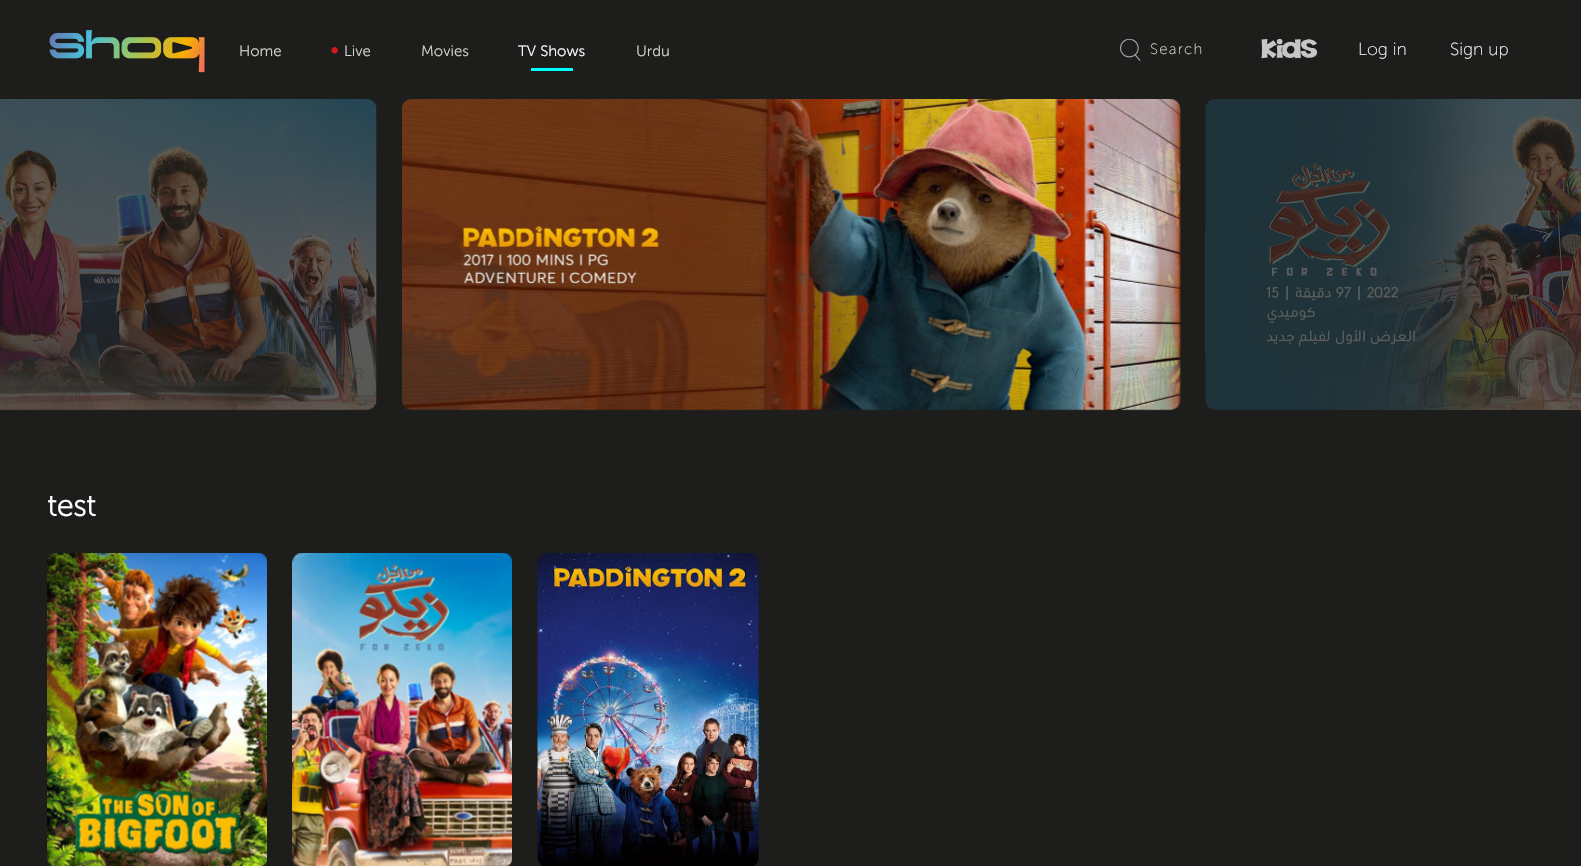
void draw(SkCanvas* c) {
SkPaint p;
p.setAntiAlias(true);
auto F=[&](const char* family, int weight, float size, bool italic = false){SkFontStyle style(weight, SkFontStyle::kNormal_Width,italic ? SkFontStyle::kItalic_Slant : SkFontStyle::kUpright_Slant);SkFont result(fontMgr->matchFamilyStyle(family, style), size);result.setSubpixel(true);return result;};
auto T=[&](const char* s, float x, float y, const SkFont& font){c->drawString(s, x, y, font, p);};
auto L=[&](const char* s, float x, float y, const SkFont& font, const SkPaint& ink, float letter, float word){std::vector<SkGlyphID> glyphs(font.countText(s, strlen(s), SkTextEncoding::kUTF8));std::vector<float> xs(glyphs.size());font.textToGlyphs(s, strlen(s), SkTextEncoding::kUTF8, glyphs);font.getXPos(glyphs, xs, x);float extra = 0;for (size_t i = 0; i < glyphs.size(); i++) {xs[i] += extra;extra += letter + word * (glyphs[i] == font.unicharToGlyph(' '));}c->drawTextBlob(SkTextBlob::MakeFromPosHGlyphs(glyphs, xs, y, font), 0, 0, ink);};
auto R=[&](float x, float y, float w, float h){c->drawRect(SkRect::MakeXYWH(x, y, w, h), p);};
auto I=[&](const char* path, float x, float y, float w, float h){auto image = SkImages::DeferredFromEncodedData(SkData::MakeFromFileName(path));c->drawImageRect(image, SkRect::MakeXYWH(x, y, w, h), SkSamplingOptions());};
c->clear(0xff1d1d1b);
I("1.png",49,30,156,43);
auto f1 = F("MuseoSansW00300",300,15);
p.setColor(0xffd2d2d1);
T("Home",239,56,f1);
I("2.png",331,47,7,7);
T("Live",344,56,f1);
T("Movies",421,56,f1);
p.setColor(0xffffffff);
T("TV Shows",518,56,f1);
p.setColor(0xff00ffff);
R(531,68,42,3);
p.setColor(0xffd2d2d1);
T("Urdu",636,56,f1);
I("3.png",1120,39,21,22);
auto f2 = F("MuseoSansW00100",200,15);
L("Search",1150,54,f2,p,1.25,0);
I("4.png",1261,39,57,20);
auto f3 = F("MuseoSansW00100",200,17.5);
p.setColor(0xfff1f1f1);
T("Log in",1358,55,f3);
T("Sign up",1450,55,f3);
I("5.png",0,99,377,312);
auto f4 = F("MuseoSansW00100",200,16);
p.setColor(0xff484340);
T("TRAILER",304,379,f4);
I("6.png",402,99,779,312);
p.setColor(0xff325562);
T("P",1044,379,f4);
T("Y",1071,379,f4);
I("7.png",1205,99,376,311);
auto f5 = F("MuseoSansW00100",700,30);
p.setColor(0xffffffff);
T("test",47,516,f5);
I("8.png",47,553,220,313);
I("9.png",292,553,220,313);
I("10.png",537,553,222,313);
}
